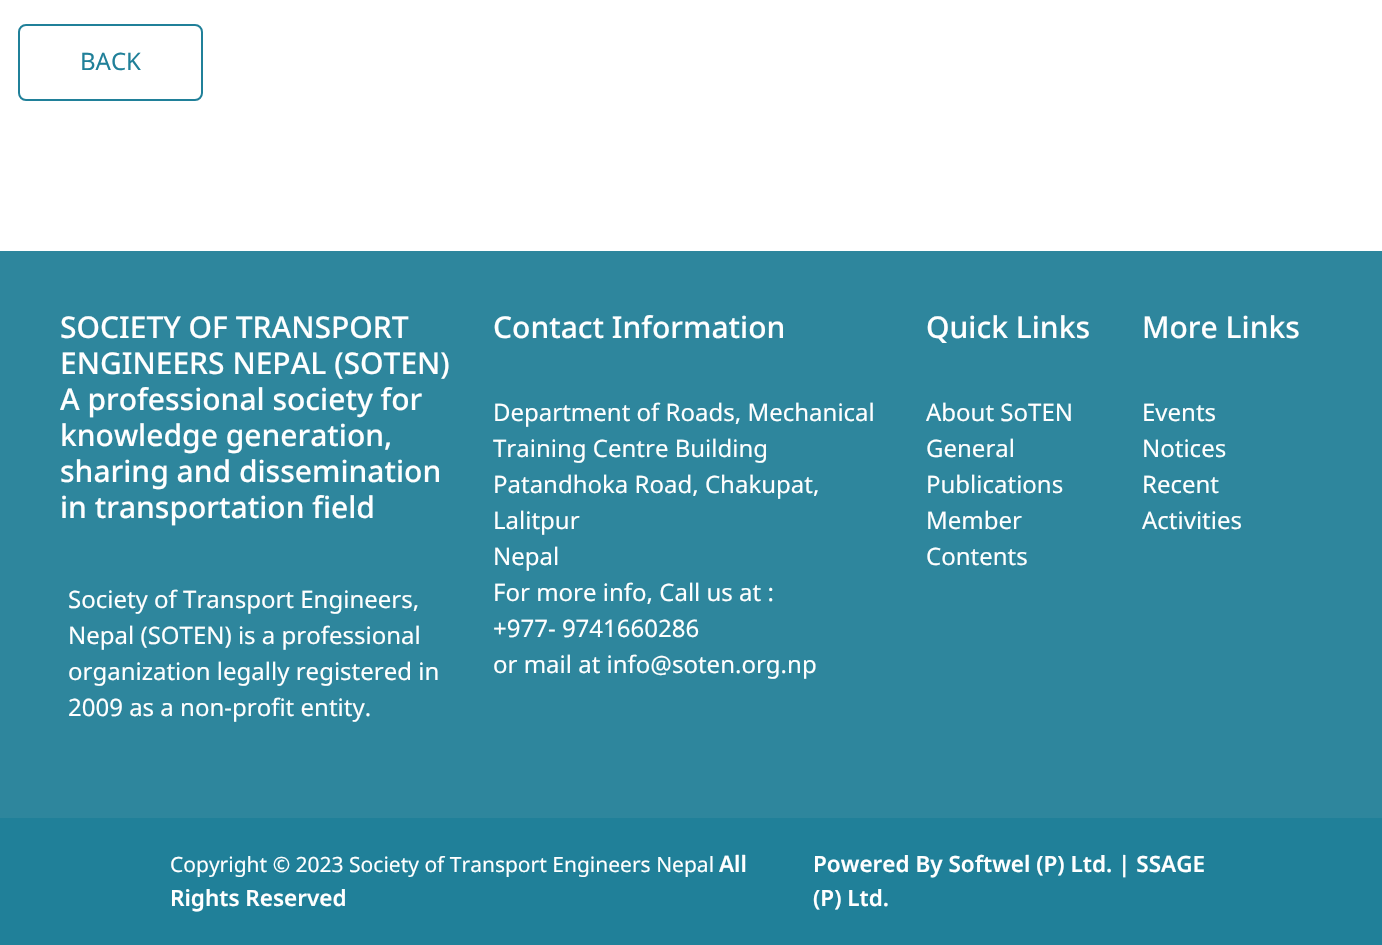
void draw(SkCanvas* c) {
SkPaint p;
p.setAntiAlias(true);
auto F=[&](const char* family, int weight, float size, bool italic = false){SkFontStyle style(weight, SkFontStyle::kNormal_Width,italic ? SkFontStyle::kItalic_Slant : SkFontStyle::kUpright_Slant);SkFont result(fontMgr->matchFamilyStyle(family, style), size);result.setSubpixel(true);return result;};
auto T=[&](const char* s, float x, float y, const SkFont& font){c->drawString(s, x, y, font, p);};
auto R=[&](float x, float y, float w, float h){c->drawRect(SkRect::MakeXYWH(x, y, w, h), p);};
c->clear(0xffffffff);
p.setStroke(true);
p.setStrokeWidth(2);
p.setColor(0xff208099);
c->drawRoundRect(SkRect::MakeXYWH(19,25,183,75),7,7,p);
auto f1 = F("Noto Sans",400,24);
p.setStroke(false);
T("BACK",80,70,f1);
p.setColor(0xff2e869d);
R(0,251,1382,567);
auto f2 = F("Noto Sans",500,30);
p.setColor(0xffffffff);
T("SOCIETY OF TRANSPORT",60,338,f2);
T("ENGINEERS NEPAL (SOTEN)",60,374,f2);
T("A professional society for",60,410,f2);
T("knowledge generation,",60,446,f2);
T("sharing and dissemination",60,482,f2);
T("in transportation field",60,518,f2);
T("Society of Transport Engineers,",68,608,f1);
T("Nepal (SOTEN) is a professional",68,644,f1);
T("organization legally registered in",68,680,f1);
T("2009 as a non-profit entity.",68,716,f1);
T("Contact Information",493,338,f2);
T("Department of Roads, Mechanical",493,421,f1);
T("Training Centre Building",493,457,f1);
T("Patandhoka Road, Chakupat,",493,493,f1);
T("Lalitpur",493,529,f1);
T("Nepal",493,565,f1);
T("For more info, Call us at :",493,601,f1);
T("+977- 9741660286",493,637,f1);
T("or mail at info@soten.org.np",493,673,f1);
T("Quick Links",926,338,f2);
T("About SoTEN",926,421,f1);
T("General",926,457,f1);
T("Publications",926,493,f1);
T("Member",926,529,f1);
T("Contents",926,565,f1);
T("More Links",1142,338,f2);
T("Events",1142,421,f1);
T("Notices",1142,457,f1);
T("Recent",1142,493,f1);
T("Activities",1142,529,f1);
p.setColor(0xff208099);
R(0,818,1382,127);
auto f3 = F("Noto Sans",400,21);
p.setColor(0xffffffff);
T("Copyright © 2023 Society of Transport Engineers Nepal",170,872,f3);
auto f4 = F("Noto Sans",600,22.5);
T("All",719,872,f4);
T("Rights Reserved",170,906,f4);
T("Powered By Softwel (P) Ltd. | SSAGE",813,872,f4);
T("(P) Ltd.",813,906,f4);
}
